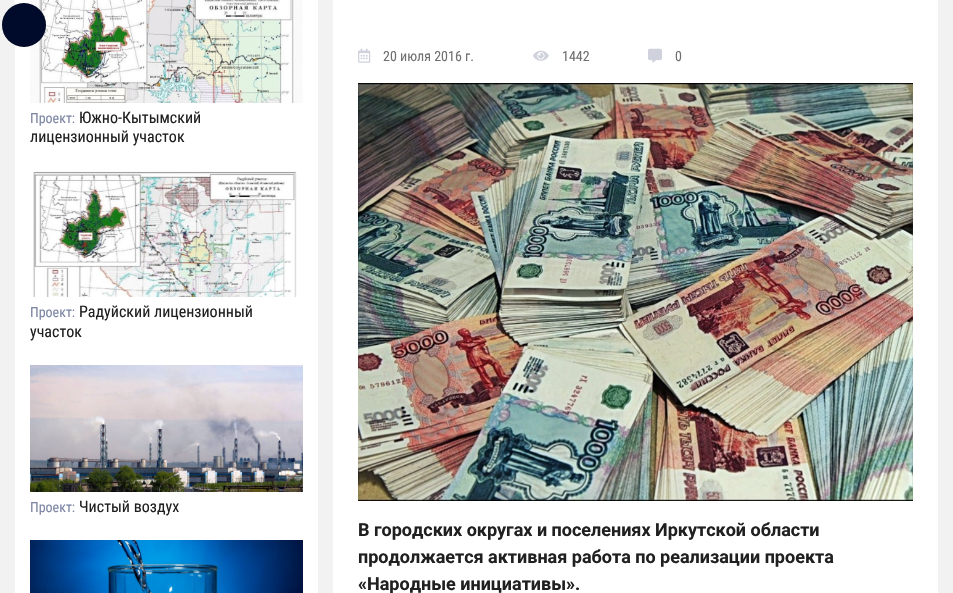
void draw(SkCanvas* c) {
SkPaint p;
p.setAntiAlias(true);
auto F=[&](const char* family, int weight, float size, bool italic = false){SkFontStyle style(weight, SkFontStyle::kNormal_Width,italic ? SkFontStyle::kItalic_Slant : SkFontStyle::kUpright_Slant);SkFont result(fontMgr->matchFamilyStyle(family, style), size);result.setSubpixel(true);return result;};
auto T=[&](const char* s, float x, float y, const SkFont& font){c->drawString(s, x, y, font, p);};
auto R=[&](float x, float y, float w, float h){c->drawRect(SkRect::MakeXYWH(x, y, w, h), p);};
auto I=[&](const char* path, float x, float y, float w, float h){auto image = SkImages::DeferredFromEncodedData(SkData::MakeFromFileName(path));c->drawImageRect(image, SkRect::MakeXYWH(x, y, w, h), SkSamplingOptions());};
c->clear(0xfff2f2f2);
p.setColor(0xffffffff);
R(15,0,303,593);
I("1.png",30,0,273,103);
p.setColor(0xff000a2a);
c->drawCircle(24,25,22,p);
p.setStroke(true);
p.setStrokeWidth(1);
p.setColor(0x1a000000);
c->drawCircle(24,25,21.5,p);
auto f1 = F("Roboto Condensed",400,14);
p.setStroke(false);
p.setColor(0xff7d86a4);
T("Проект:",30,123,f1);
auto f2 = F("Roboto Condensed",400,16);
p.setColor(0xff202020);
T("Южно-Кытымский",79,123,f2);
T("лицензионный участок",30,142,f2);
I("2.png",33,171,264,126);
p.setColor(0xff7d86a4);
T("Проект:",30,317,f1);
p.setColor(0xff202020);
T("Радуйский лицензионный",79,317,f2);
T("участок",30,337,f2);
I("3.png",30,365,273,127);
p.setColor(0xff7d86a4);
T("Проект:",30,512,f1);
p.setColor(0xff202020);
T("Чистый воздух",79,512,f2);
I("4.png",30,540,273,53);
p.setColor(0xffffffff);
R(333,0,605,593);
I("5.png",358,48,13,15);
p.setColor(0xff707070);
T("20 июля 2016 г.",383,61,f1);
I("6.png",533,50,16,11);
T("1442",562,61,f1);
I("7.png",648,48,14,15);
T("0",675,61,f1);
I("8.png",358,83,555,418);
auto f3 = F("Roboto",700,18);
p.setColor(0xff202020);
T("В городских округах и поселениях Иркутской области",358,536,f3);
T("продолжается активная работа по реализации проекта",358,563,f3);
T("«Народные инициативы».",358,590,f3);
}
